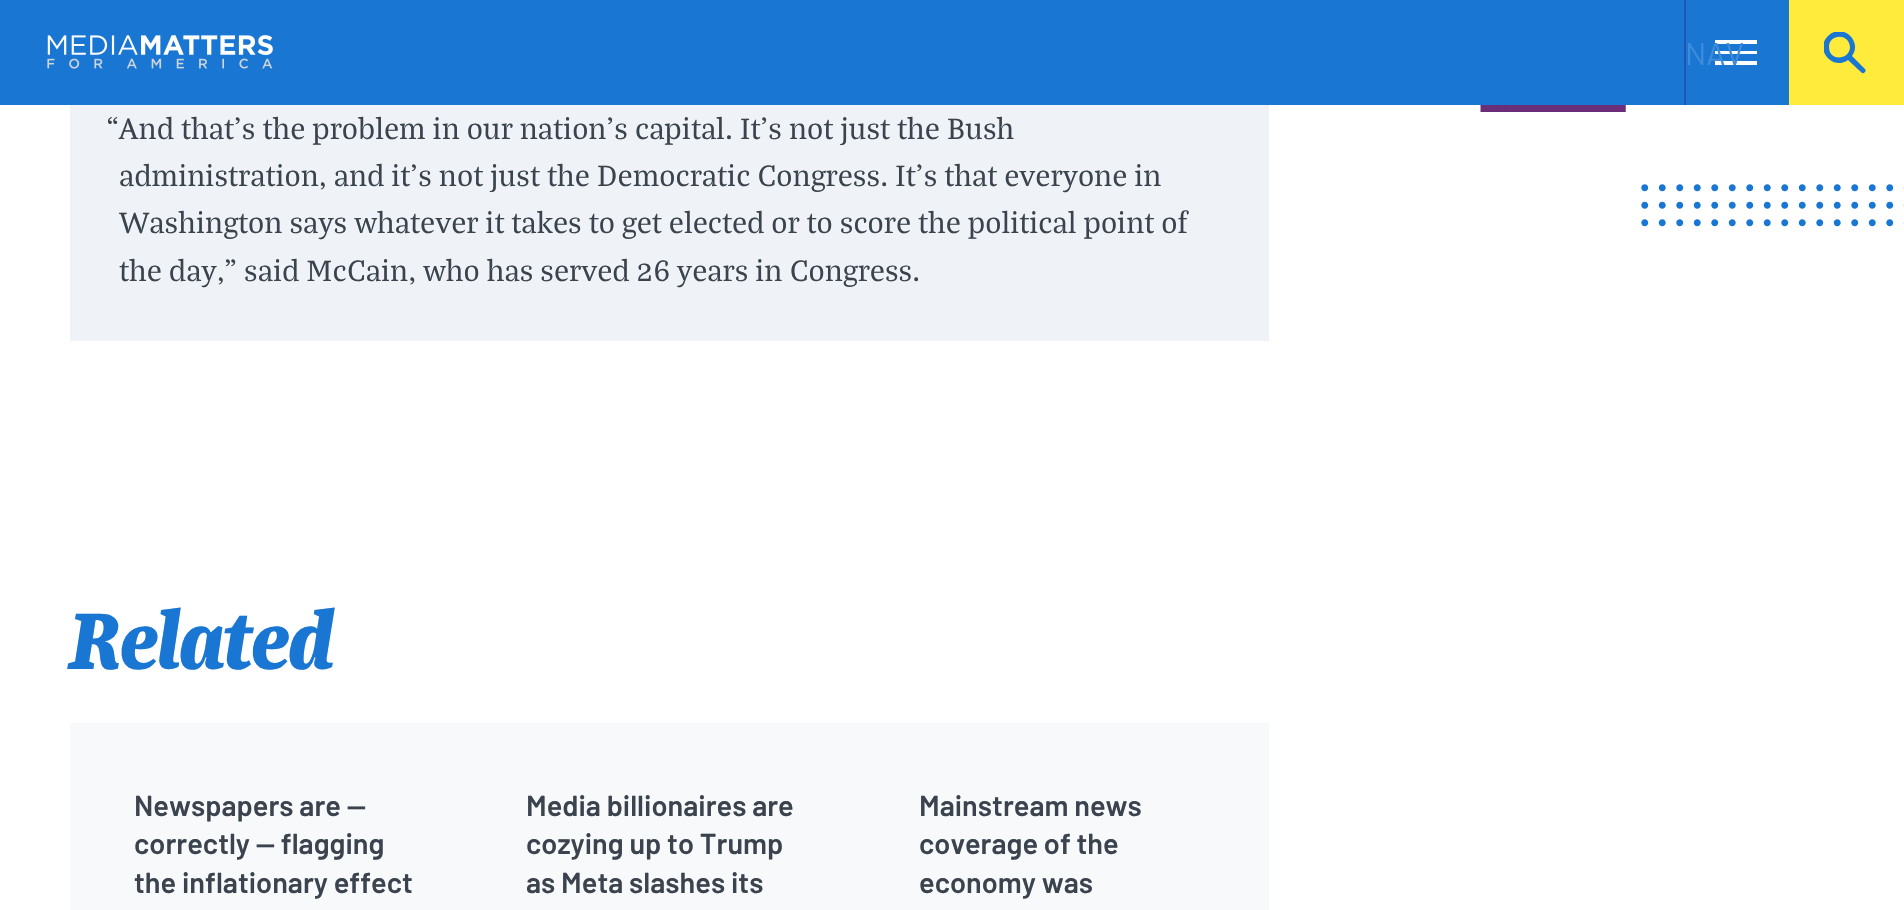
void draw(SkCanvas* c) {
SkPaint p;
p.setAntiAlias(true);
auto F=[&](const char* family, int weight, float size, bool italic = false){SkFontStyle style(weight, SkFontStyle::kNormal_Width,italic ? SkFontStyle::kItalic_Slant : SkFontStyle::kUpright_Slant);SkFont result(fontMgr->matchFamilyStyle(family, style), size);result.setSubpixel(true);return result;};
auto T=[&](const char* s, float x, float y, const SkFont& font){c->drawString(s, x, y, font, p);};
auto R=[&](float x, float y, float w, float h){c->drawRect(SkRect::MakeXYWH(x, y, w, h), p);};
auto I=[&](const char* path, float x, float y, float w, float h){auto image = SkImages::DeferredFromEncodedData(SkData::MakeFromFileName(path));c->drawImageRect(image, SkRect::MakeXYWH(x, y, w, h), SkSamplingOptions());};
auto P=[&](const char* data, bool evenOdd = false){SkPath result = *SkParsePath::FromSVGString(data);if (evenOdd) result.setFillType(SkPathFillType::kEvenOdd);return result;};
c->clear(0xffffffff);
p.setColor(0xff1976d2);
R(0,0,1789,105);
I("1.png",47,35,226,34);
p.setColor(0xffffffff);
c->drawPath(P("M1715 40h42v4h-42zm0 11h42v3h-42zm0 10h42v4h-42z",true),p);
p.setColor(0xff2055b2);
R(1684,0,2,105);
auto f1 = F("Barlow",400,31.5);
p.setColor(0xff3d8bd9);
T("NAV",1685,65,f1);
p.setColor(0xffffeb3b);
R(1789,0,115,105);
c->save();
c->clipRect(SkRect::MakeXYWH(1824,32,43,42));
p.setColor(0xff1976d2);
c->drawPath(P("M1829 47c0-13 20-14 21 0c0 13-21 15-21 0m36 22l-13-13c11-15-10-34-24-20c-14 14 5 35 20 24l14 13c2 1 5-2 3-4",true),p);
c->restore();
p.setColor(0xffeff3f7);
R(70,105,1199,236);
auto f2 = F("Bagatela",400,31.5);
p.setColor(0xff3a434e);
T("“And that's the problem in our nation's capital. It's not just the Bush",106,139,f2);
T("administration, and it's not just the Democratic Congress. It's that everyone in",119,186,f2);
T("Washington says whatever it takes to get elected or to score the political point of",119,233,f2);
T("the day,” said McCain, who has served 26 years in Congress.",119,281,f2);
I("2.png",1480,105,146,7);
I("3.png",1641,184,263,43);
auto f3 = F("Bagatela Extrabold",800,86.5,true);
p.setColor(0xff1976d2);
T("Related",70,669,f3);
p.setColor(0xfff7f9fb);
R(70,723,1199,187);
auto f4 = F("Barlow",600,28.9);
p.setColor(0xff3a434e);
T("Newspapers are —",134,816,f4);
T("correctly — flagging",134,854,f4);
T("the inflationary effect",134,893,f4);
T("Media billionaires are",526,816,f4);
T("cozying up to Trump",526,854,f4);
T("as Meta slashes its",526,893,f4);
T("Mainstream news",919,816,f4);
T("coverage of the",919,854,f4);
T("economy was",919,893,f4);
}
